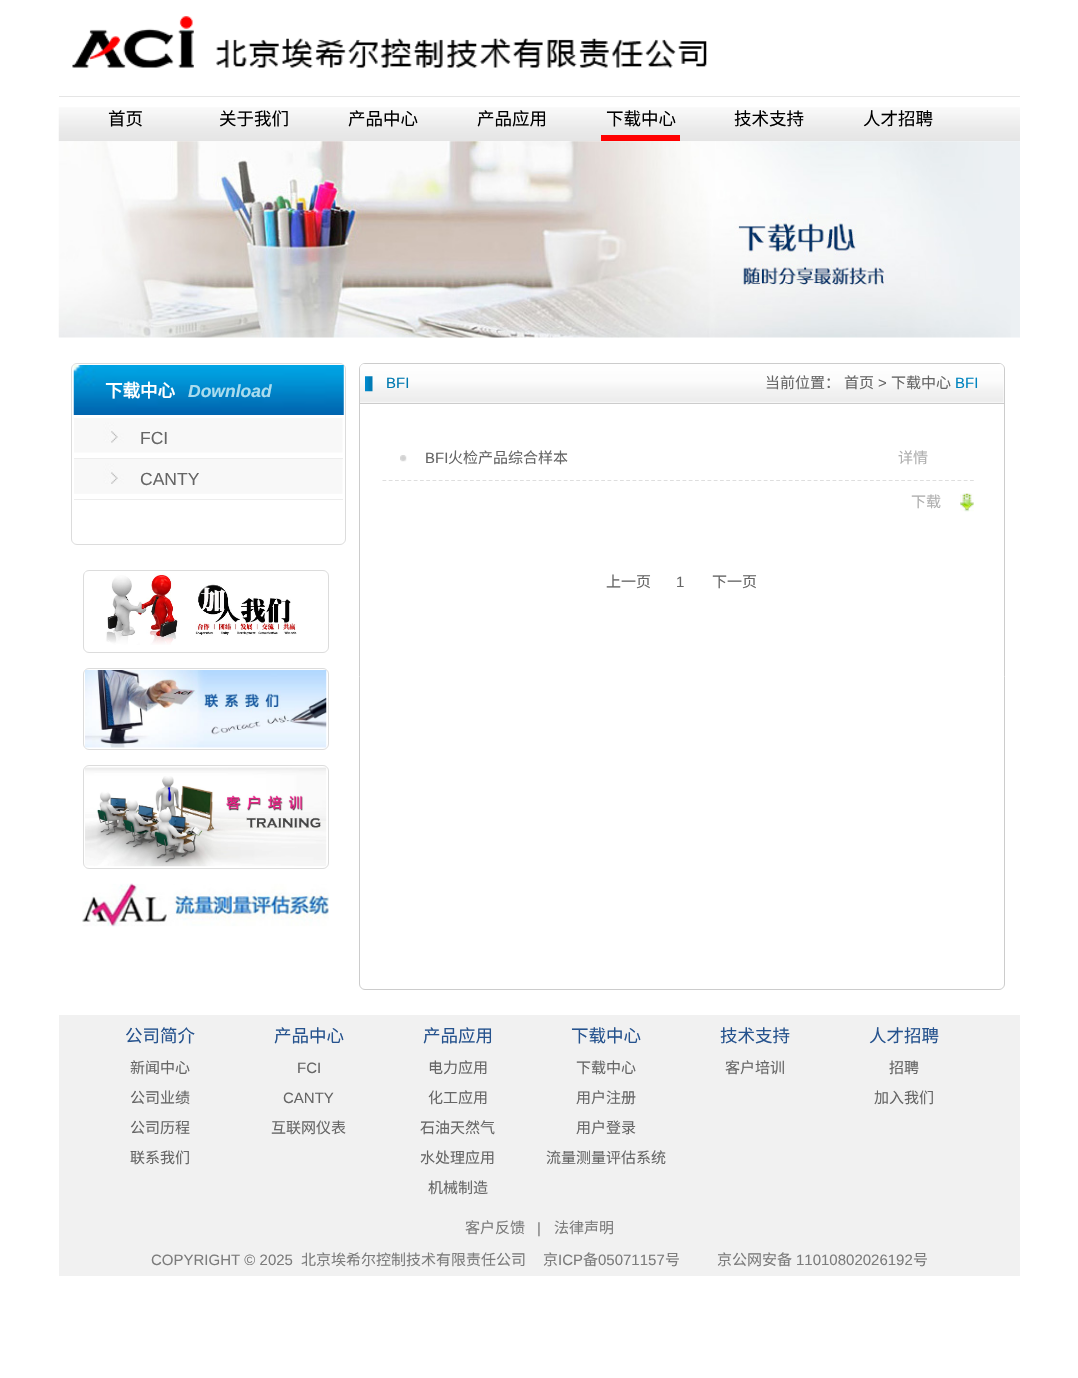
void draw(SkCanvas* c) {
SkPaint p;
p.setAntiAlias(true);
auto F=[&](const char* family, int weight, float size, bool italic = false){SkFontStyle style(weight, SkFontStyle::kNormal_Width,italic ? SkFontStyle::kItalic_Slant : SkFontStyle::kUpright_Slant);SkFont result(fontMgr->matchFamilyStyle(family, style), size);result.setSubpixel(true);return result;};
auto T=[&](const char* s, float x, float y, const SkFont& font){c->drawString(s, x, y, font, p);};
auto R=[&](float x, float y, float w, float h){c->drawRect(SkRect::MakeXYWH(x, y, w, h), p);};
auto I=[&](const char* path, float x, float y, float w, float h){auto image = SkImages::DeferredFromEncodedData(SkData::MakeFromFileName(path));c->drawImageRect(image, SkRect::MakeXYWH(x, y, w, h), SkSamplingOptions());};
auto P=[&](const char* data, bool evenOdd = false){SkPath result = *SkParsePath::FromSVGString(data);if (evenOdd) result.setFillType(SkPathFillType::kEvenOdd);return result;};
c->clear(0xffffffff);
p.setColor(0xffe5e5e5);
R(59,96,961,1);
I("1.png",72,16,635,52);
I("2.png",58,107,962,35);
auto f1 = F("Noto Sans CJK SC",400,17.5);
p.setColor(0xff000000);
T("首页",108,125,f1);
T("关于我们",219,125,f1);
T("产品中心",348,125,f1);
T("产品应用",477,125,f1);
p.setColor(0xffff0000);
R(601,135,79,6);
p.setColor(0xff000000);
T("下载中心",606,125,f1);
T("技术支持",734,125,f1);
T("人才招聘",863,125,f1);
I("3.png",58,141,962,197);
p.setStroke(true);
p.setStrokeWidth(1);
p.setColor(0xffdcdcdc);
c->drawRoundRect(SkRect::MakeXYWH(71.5,363.5,274,181),5.5,5.5,p);
I("4.png",73,365,271,50);
auto f2 = F("Noto Sans CJK SC",700,17.5);
p.setStroke(false);
p.setColor(0xffffffff);
T("下载中心",105,397,f2);
auto f3 = F("Liberation Sans",700,17.5,true);
p.setColor(0xffaadcee);
T("Download",188,397,f3);
I("5.png",74,418,269,35);
p.setColor(0xffededed);
R(74,458,269,1);
auto f4 = F("Liberation Sans",400,17.5);
p.setColor(0xff666666);
T("FCI",140,444,f4);
I("6.png",74,459,269,35);
p.setColor(0xffededed);
R(74,499,269,1);
p.setColor(0xff666666);
T("CANTY",140,485,f4);
p.setStroke(true);
p.setColor(0xffdcdcdc);
c->drawRoundRect(SkRect::MakeXYWH(83.5,570.5,245,82),5.5,5.5,p);
I("7.png",85,572,212,73);
c->drawRoundRect(SkRect::MakeXYWH(83.5,668.5,245,81),5.5,5.5,p);
I("8.png",85,670,242,78);
c->drawRoundRect(SkRect::MakeXYWH(83.5,765.5,245,103),5.5,5.5,p);
I("9.png",85,767,242,100);
I("10.png",82,883,247,44);
p.setColor(0xffcccccc);
c->drawRoundRect(SkRect::MakeXYWH(359.5,363.5,645,626),5.5,5.5,p);
I("11.png",360,364,644,39);
p.setStroke(false);
R(360,403,644,1);
I("12.png",365,376,8,16);
auto f5 = F("Liberation Sans",400,15);
p.setColor(0xff0079b0);
T("BFI",386,388,f5);
auto f6 = F("Noto Sans CJK SC",400,15);
p.setColor(0xff666666);
T("当前位置：",765,388,f6);
T("首页",844,388,f6);
T(">",878,388,f5);
T("下载中心",891,388,f6);
p.setColor(0xff0084bf);
T("BFI",955,388,f5);
I("13.png",400,455,7,7);
p.setStroke(true);
p.setStrokeWidth(1.2);
p.setColor(0xffdedede);
p.setPathEffect(SkDashPathEffect::Make({{3.75f,2.5f}}, 0));
c->drawPath(P("M382.5 480.5h591.5"),p);
p.setPathEffect(nullptr);
p.setStroke(false);
p.setColor(0xff666666);
T("BFI",425,463,f5);
T("火检产品综合样本",448,463,f6);
p.setColor(0xffb0b0b0);
T("详情",898,463,f6);
I("14.png",960,493,14,19);
T("下载",911,507,f6);
p.setColor(0xff666666);
T("上一页",606,587,f6);
T("1",676,587,f5);
T("下一页",712,587,f6);
p.setColor(0xfff1f1f1);
R(59,1015,961,261);
p.setColor(0xff26538e);
T("公司简介",125,1042,f1);
p.setColor(0xff666666);
T("新闻中心",130,1073,f6);
T("公司业绩",130,1103,f6);
T("公司历程",130,1133,f6);
T("联系我们",130,1163,f6);
p.setColor(0xff26538e);
T("产品中心",274,1042,f1);
p.setColor(0xff666666);
T("FCI",297,1073,f5);
T("CANTY",283,1103,f5);
T("互联网仪表",271,1133,f6);
p.setColor(0xff26538e);
T("产品应用",423,1042,f1);
p.setColor(0xff666666);
T("电力应用",428,1073,f6);
T("化工应用",428,1103,f6);
T("石油天然气",420,1133,f6);
T("水处理应用",420,1163,f6);
T("机械制造",428,1193,f6);
p.setColor(0xff26538e);
T("下载中心",571,1042,f1);
p.setColor(0xff666666);
T("下载中心",576,1073,f6);
T("用户注册",576,1103,f6);
T("用户登录",576,1133,f6);
T("流量测量评估系统",546,1163,f6);
p.setColor(0xff26538e);
T("技术支持",720,1042,f1);
p.setColor(0xff666666);
T("客户培训",725,1073,f6);
p.setColor(0xff26538e);
T("人才招聘",869,1042,f1);
p.setColor(0xff666666);
T("招聘",889,1073,f6);
T("加入我们",874,1103,f6);
p.setColor(0xff7c7c7c);
T("客户反馈",465,1233,f6);
T("|",537,1233,f5);
T("法律声明",554,1233,f6);
T("COPYRIGHT © 2025",151,1265,f5);
T("北京埃希尔控制技术有限责任公司",301,1265,f6);
T("京",543,1265,f6);
T("ICP",558,1265,f5);
T("备",583,1265,f6);
T("05071157",598,1265,f5);
T("号",665,1265,f6);
T("京公网安备",717,1265,f6);
T("11010802026192",796,1265,f5);
T("号",913,1265,f6);
}
